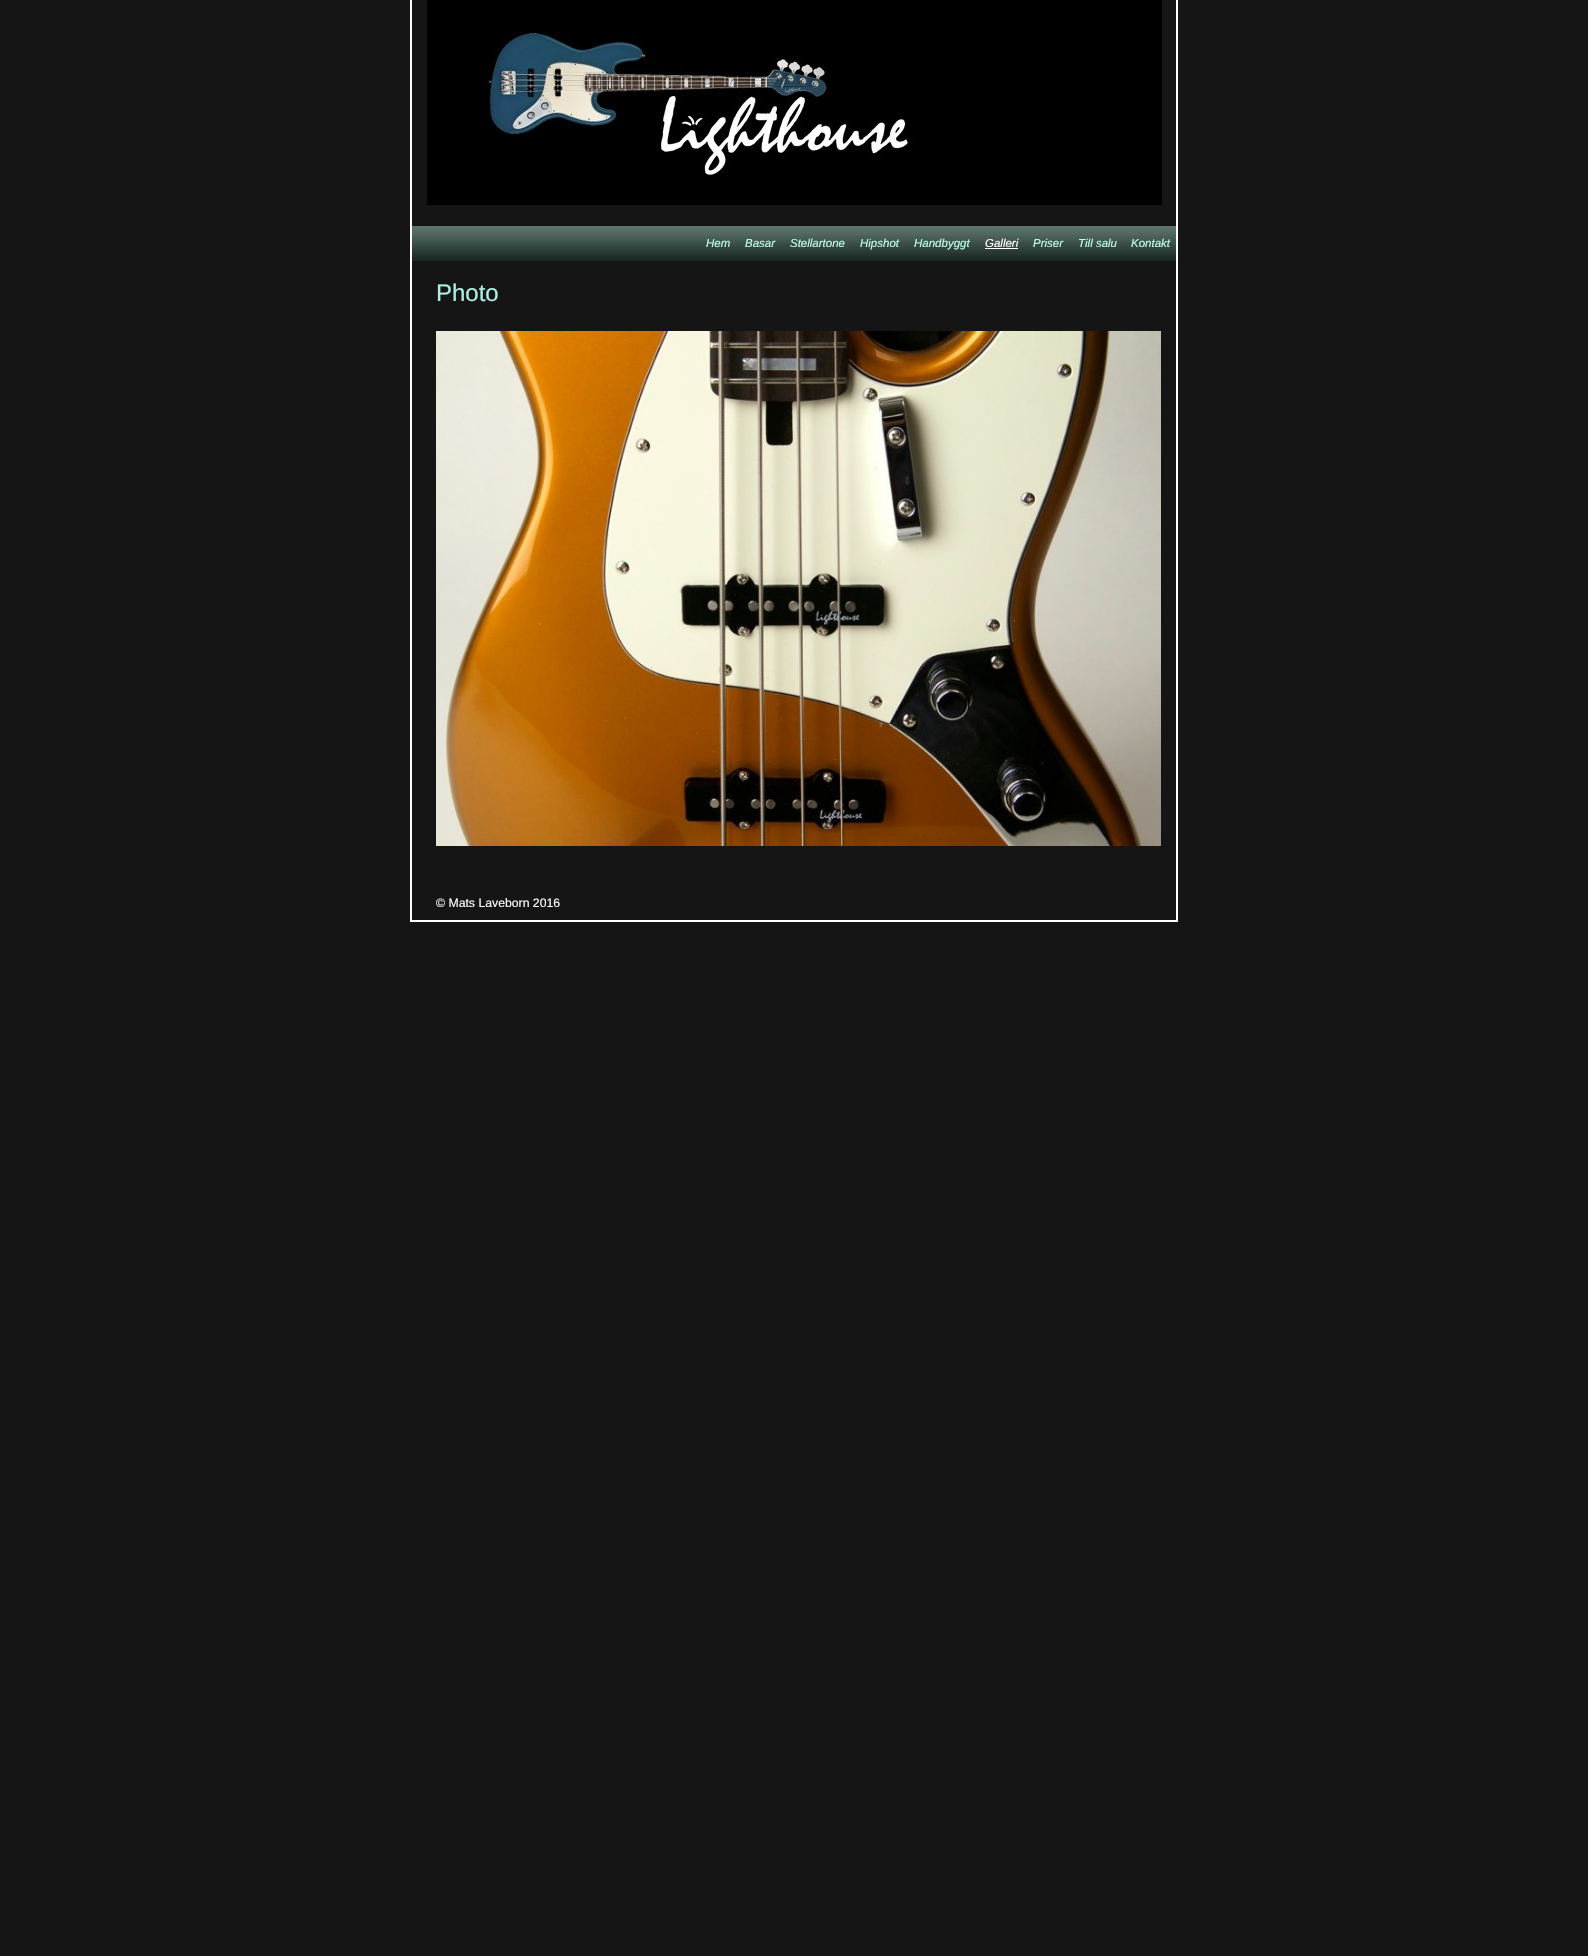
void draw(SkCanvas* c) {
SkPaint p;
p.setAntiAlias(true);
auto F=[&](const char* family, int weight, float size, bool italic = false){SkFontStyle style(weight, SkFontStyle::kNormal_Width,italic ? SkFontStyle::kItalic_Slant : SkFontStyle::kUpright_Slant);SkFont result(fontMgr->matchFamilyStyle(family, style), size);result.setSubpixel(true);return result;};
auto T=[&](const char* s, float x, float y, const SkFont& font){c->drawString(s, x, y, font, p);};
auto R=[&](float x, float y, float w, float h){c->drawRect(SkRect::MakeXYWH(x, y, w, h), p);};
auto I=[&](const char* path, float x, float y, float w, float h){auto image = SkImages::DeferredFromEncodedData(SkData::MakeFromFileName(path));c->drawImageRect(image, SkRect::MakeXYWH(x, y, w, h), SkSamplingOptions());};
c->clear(0xff151515);
p.setColor(0xffffffff);
R(1176,0,2,922);
R(410,920,768,2);
R(410,0,2,922);
I("1.png",427,0,735,205);
I("2.png",412,226,764,35);
auto f1 = F("Liberation Sans",400,11.5,true);
p.setColor(0xffbfffe4);
T("Hem",706,247,f1);
T("Basar",745,247,f1);
T("Stellartone",790,247,f1);
T("Hipshot",860,247,f1);
T("Handbyggt",914,247,f1);
p.setColor(0xffffffff);
T("Galleri",985,247,f1);
R(985,248,33,1);
p.setColor(0xffbfffe4);
T("Priser",1033,247,f1);
T("Till salu",1078,247,f1);
T("Kontakt",1131,247,f1);
auto f2 = F("Liberation Sans",400,24);
p.setColor(0xffadf0e4);
T("Photo",436,301,f2);
I("3.png",436,331,725,515);
auto f3 = F("Liberation Sans",400,12.25);
p.setColor(0xffffffff);
T("© Mats Laveborn 2016",436,907,f3);
}
